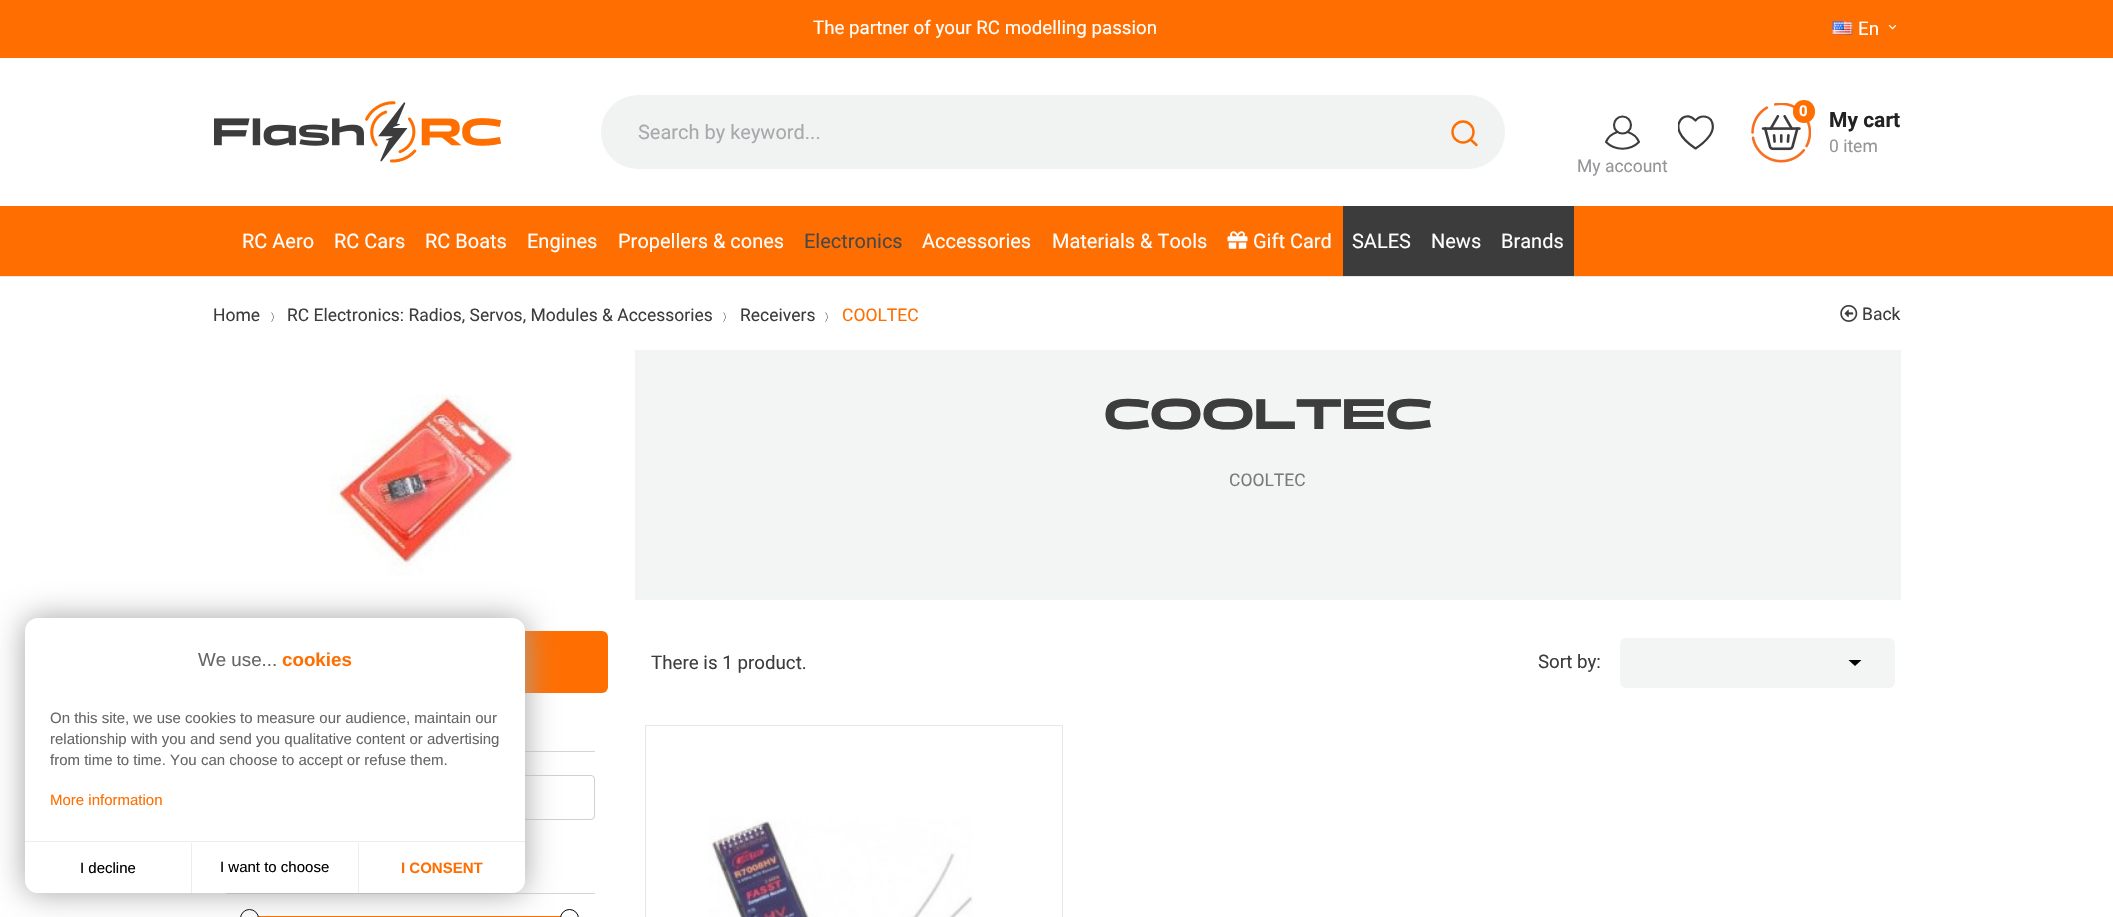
void draw(SkCanvas* c) {
SkPaint p;
p.setAntiAlias(true);
auto F=[&](const char* family, int weight, float size, bool italic = false){SkFontStyle style(weight, SkFontStyle::kNormal_Width,italic ? SkFontStyle::kItalic_Slant : SkFontStyle::kUpright_Slant);SkFont result(fontMgr->matchFamilyStyle(family, style), size);result.setSubpixel(true);return result;};
auto T=[&](const char* s, float x, float y, const SkFont& font){c->drawString(s, x, y, font, p);};
auto R=[&](float x, float y, float w, float h){c->drawRect(SkRect::MakeXYWH(x, y, w, h), p);};
auto Q=[&](float x, float y, float w, float h, float radius){c->drawRoundRect(SkRect::MakeXYWH(x, y, w, h), radius, radius, p);};
auto I=[&](const char* path, float x, float y, float w, float h){auto image = SkImages::DeferredFromEncodedData(SkData::MakeFromFileName(path));c->drawImageRect(image, SkRect::MakeXYWH(x, y, w, h), SkSamplingOptions());};
auto P=[&](const char* data, bool evenOdd = false){SkPath result = *SkParsePath::FromSVGString(data);if (evenOdd) result.setFillType(SkPathFillType::kEvenOdd);return result;};
c->clear(0xffffffff);
p.setColor(0xffe6e7e8);
R(0,276,2113,1);
p.setColor(0xffff6e00);
R(0,0,2113,58);
auto f1 = F("Roboto",400,18.75);
p.setColor(0xffffffff);
T("The partner of your RC modelling passion",813,34,f1);
I("1.png",1832,21,21,14);
T("En",1858,35,f1);
I("2.png",1888,25,9,5);
I("3.png",214,101,287,62);
p.setColor(0xfff1f2f2);
Q(601,95,904,74,37);
auto f2 = F("Roboto",400,20);
p.setColor(0xffa7a9ab);
T("Search by keyword...",638,139,f2);
p.setStroke(true);
p.setStrokeWidth(2.4);
p.setColor(0xffff6e00);
c->drawCircle(1463,132,10.5,p);
p.setStrokeCap(SkPaint::kRound_Cap);
p.setStrokeJoin(SkPaint::kRound_Join);
c->drawPath(P("M1470.5 139.5l6 5.5"),p);
c->save();
c->clipRect(SkRect::MakeXYWH(1678,115,36,35));
p.setStrokeWidth(2.2);
p.setColor(0xff3c3c3c);
c->drawPath(P("M1703.5 116.5c3 0 5.5 1 7.5 3.5c7 11.5-7.5 23.5-15.5 28.5c-6-4-13-9.5-16-16.5c-5-12 7.5-21.5 16-11.5c2-2.5 4-4 8-4"),p);
c->restore();
I("4.png",1751,103,60,60);
p.setStroke(false);
p.setColor(0xffff6e00);
Q(1793,100,22,23,11);
auto f3 = F("Roboto",700,15);
p.setColor(0xffffffff);
T("0",1799,116,f3);
auto f4 = F("Roboto",700,21);
p.setColor(0xff232323);
T("My cart",1829,127,f4);
auto f5 = F("Roboto",400,17.5);
p.setColor(0xff949598);
T("0 item",1829,152,f5);
p.setStroke(true);
p.setStrokeWidth(2.1);
p.setStrokeCap(SkPaint::kButt_Cap);
p.setStrokeJoin(SkPaint::kMiter_Join);
p.setColor(0xff3c3c3c);
c->drawCircle(1622.5,125,8.5,p);
p.setStrokeCap(SkPaint::kRound_Cap);
p.setStrokeJoin(SkPaint::kRound_Join);
c->drawPath(P("M1617.5 132c-5 1.5-9.5 5-11.5 10c9 9 24 9 33 0c-2-5-6.5-8.5-11.5-10"),p);
p.setStroke(false);
p.setColor(0xff949598);
T("My account",1577,172,f5);
p.setColor(0xffff6e01);
R(0,206,2113,70);
p.setColor(0xffffffff);
T("RC Aero",242,248,f2);
T("RC Cars",334,248,f2);
T("RC Boats",425,248,f2);
T("Engines",527,248,f2);
T("Propellers & cones",618,248,f2);
p.setColor(0xff484848);
T("Electronics",804,248,f2);
p.setColor(0xffffffff);
T("Accessories",922,248,f2);
T("Materials & Tools",1052,248,f2);
I("5.png",1227,231,21,18);
T("Gift Card",1253,248,f2);
p.setColor(0xff3c3c3c);
R(1343,206,231,70);
p.setColor(0xffffffff);
T("SALES",1352,248,f2);
T("News",1431,248,f2);
T("Brands",1501,248,f2);
p.setColor(0xff3d3d3d);
T("Home",213,321,f5);
auto f6 = F("WenQuanYi Zen Hei",500,11);
T("〉",270,321,f6);
T("RC Electronics: Radios, Servos, Modules & Accessories",287,321,f5);
T("〉",722,321,f6);
T("Receivers",740,321,f5);
T("〉",824,321,f6);
p.setColor(0xffff6e00);
T("COOLTEC",842,321,f5);
I("6.png",1840,305,18,17);
p.setColor(0xff3d3d3d);
T("Back",1862,320,f5);
I("7.png",329,394,187,182);
p.setColor(0xfff3f4f4);
R(635,350,1266,250);
auto f7 = F("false",700,43.75);
p.setColor(0xff3d3d3d);
T("COOLTEC",1104,429,f7);
p.setColor(0xff7a7a7a);
T("COOLTEC",1229,486,f5);
p.setColor(0xffff6e00);
Q(214,631,394,62,6);
p.setColor(0xffd6d4d4);
R(525,751,70,1);
p.setStroke(true);
p.setStrokeWidth(1);
p.setStrokeCap(SkPaint::kButt_Cap);
p.setStrokeJoin(SkPaint::kMiter_Join);
p.setColor(0xffd0d0d0);
c->drawRoundRect(SkRect::MakeXYWH(239.5,775.5,355,44),3.5,3.5,p);
p.setStroke(false);
p.setColor(0xffd6d4d4);
R(226,893,369,1);
p.setColor(0xffff6e00);
R(256,916,305,1);
p.setColor(0xffffffff);
c->drawCircle(249.5,918.5,9,p);
p.setStroke(true);
p.setColor(0xff000000);
c->drawCircle(249.5,918.5,9,p);
p.setStroke(false);
p.setColor(0xffffffff);
c->drawCircle(569.5,918.5,9,p);
p.setStroke(true);
p.setColor(0xff000000);
c->drawCircle(569.5,918.5,9,p);
p.setStroke(false);
p.setColor(0xff3d3d3d);
T("There is 1 product.",651,669,f1);
T("Sort by:",1538,668,f1);
p.setColor(0xfff3f4f4);
Q(1620,638,275,50,6);
p.setColor(0xff000000);
c->drawPath(P("M1848.5 660h13l-6.5 6z"),p);
p.setStroke(true);
p.setColor(0xffe6e7e8);
c->drawRect(SkRect::MakeXYWH(645.5,725.5,417,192),p);
I("8.png",708,818,265,99);
p.setStroke(false);
p.setColor(0xffa3a3a3);
p.setMaskFilter(SkMaskFilter::MakeBlur(kNormal_SkBlurStyle, 15.5));
c->drawRoundRect(SkRect::MakeXYWH(25,618,500,275),13,13,p);
p.setMaskFilter(nullptr);
p.setColor(0xffffffff);
Q(25,618,500,275,13);
auto f8 = F("Liberation Sans",400,18.75);
p.setColor(0xff666666);
T("We use...",198,666,f8);
auto f9 = F("Liberation Sans",700,18.75);
p.setColor(0xffff6e00);
T("cookies",282,666,f9);
auto f10 = F("Liberation Sans",400,15);
p.setColor(0xff666666);
T("On this site, we use cookies to measure our audience, maintain our",50,723,f10);
T("relationship with you and send you qualitative content or advertising",50,744,f10);
T("from time to time. You can choose to accept or refuse them.",50,765,f10);
p.setColor(0xffff6e00);
T("More information",50,805,f10);
p.setColor(0xffededed);
R(25,841,500,1);
p.setColor(0xffffffff);
c->drawPath(P("M25 843h166v50h-153c-7 0-13-6-13-13z"),p);
p.setColor(0xff000000);
T("I decline",80,873,f10);
p.setColor(0xffededed);
R(358,843,1,50);
R(191,843,1,50);
p.setColor(0xff000000);
T("I want to choose",220,872,f10);
p.setColor(0xffffffff);
c->drawPath(P("M359 843h166v37c0 7-6 13-13 13h-153z"),p);
auto f11 = F("Liberation Sans",700,15);
p.setColor(0xffff6e00);
T("I CONSENT",401,873,f11);
}
